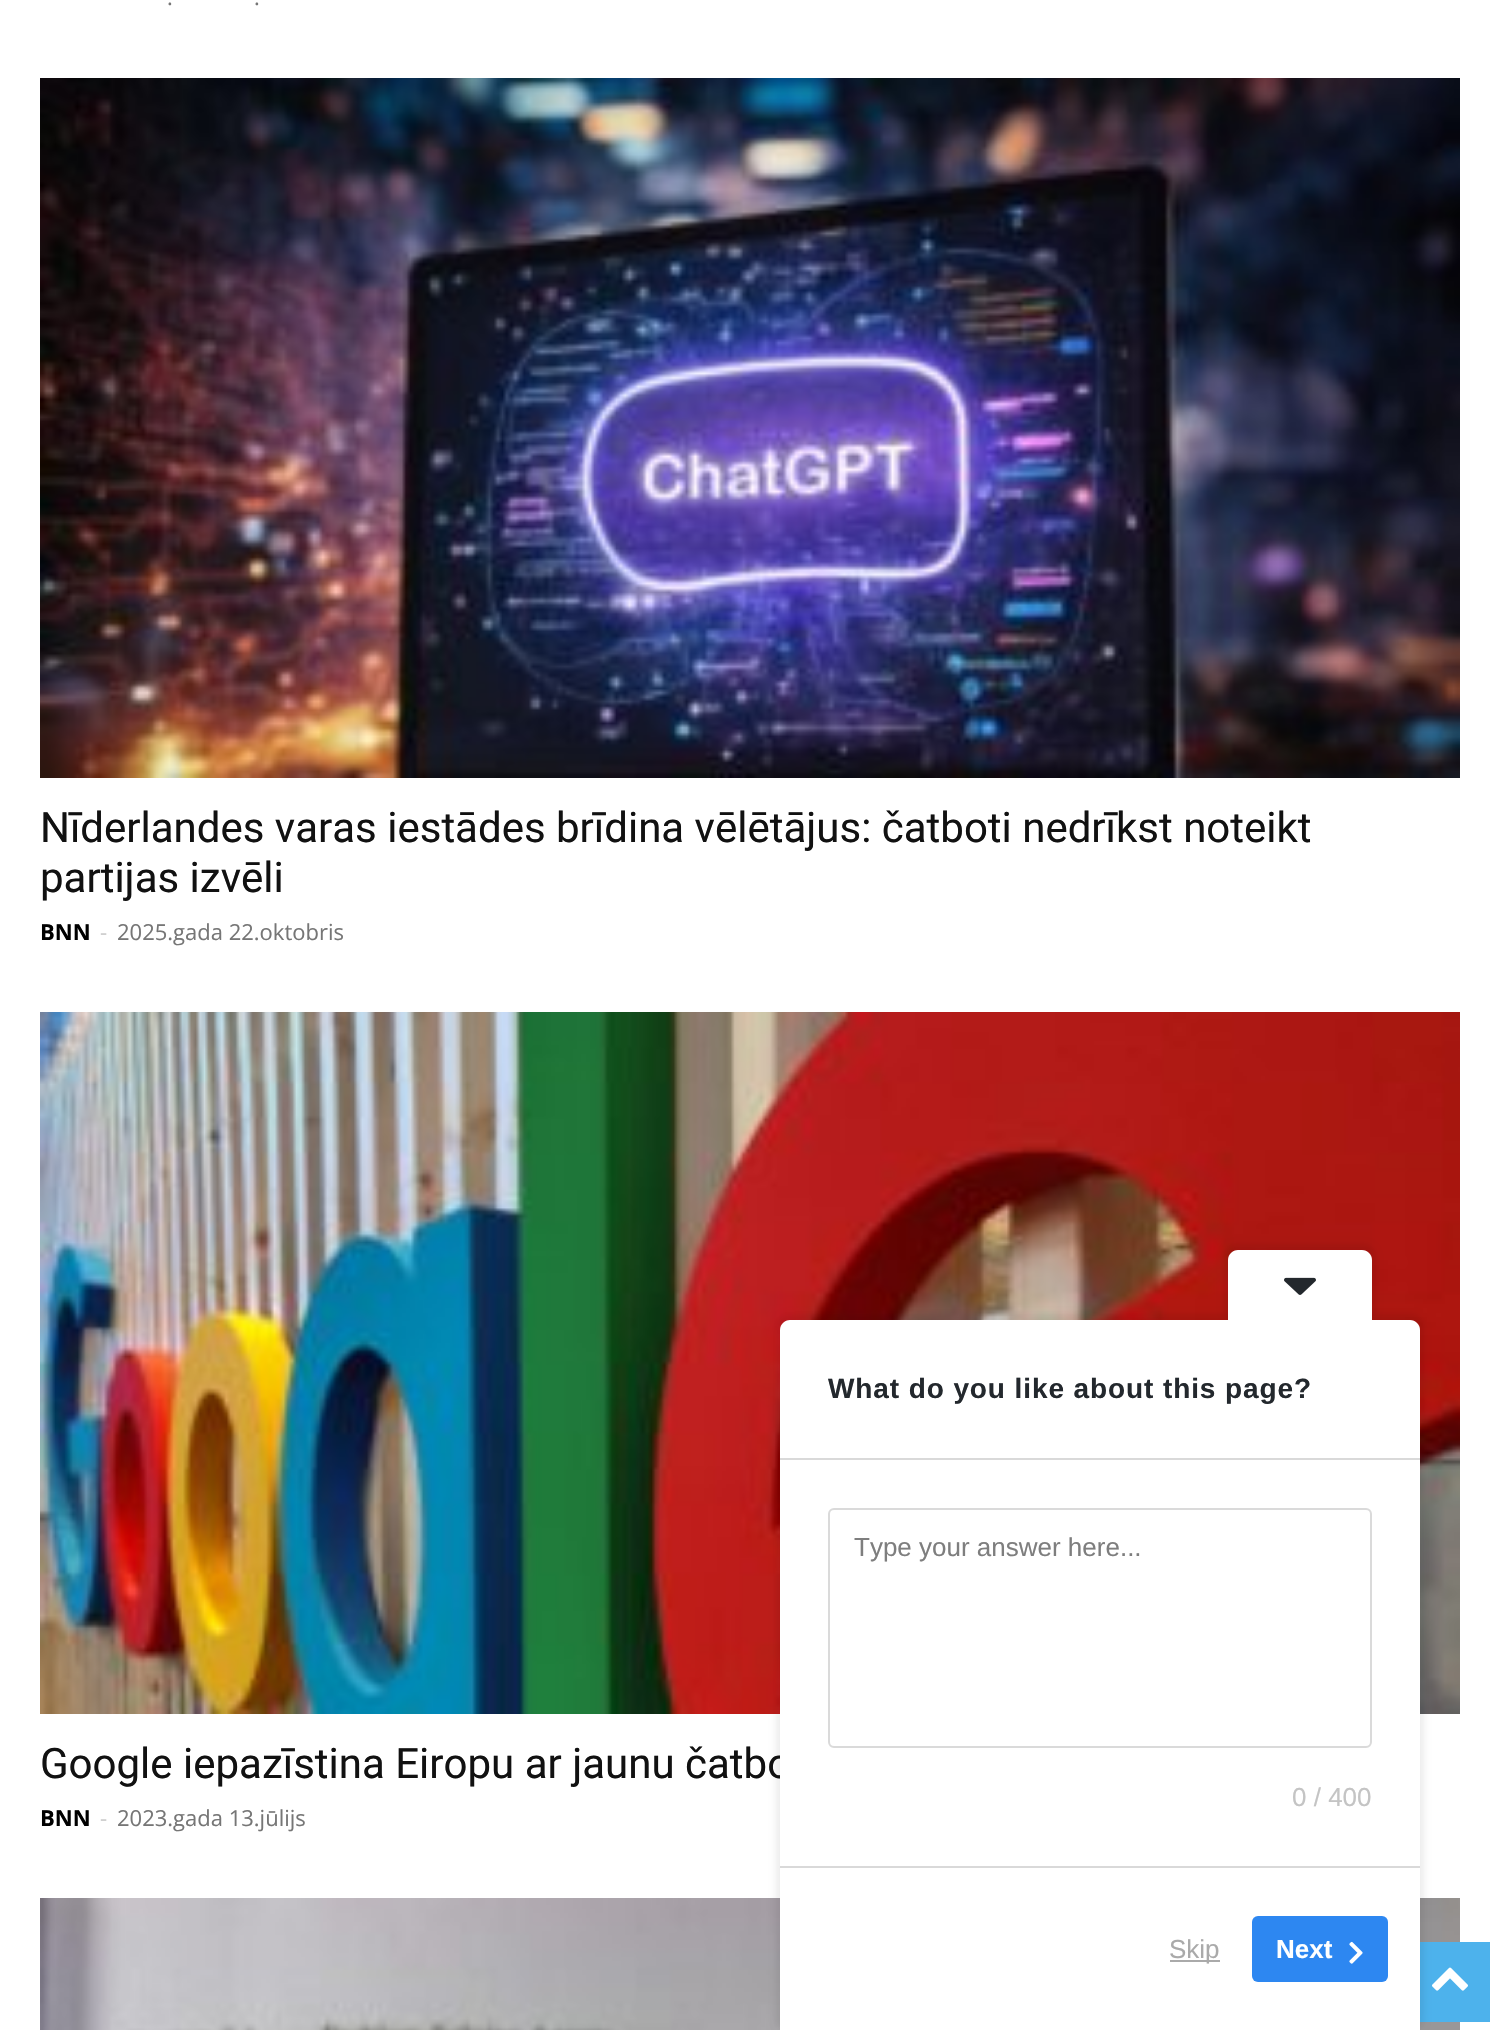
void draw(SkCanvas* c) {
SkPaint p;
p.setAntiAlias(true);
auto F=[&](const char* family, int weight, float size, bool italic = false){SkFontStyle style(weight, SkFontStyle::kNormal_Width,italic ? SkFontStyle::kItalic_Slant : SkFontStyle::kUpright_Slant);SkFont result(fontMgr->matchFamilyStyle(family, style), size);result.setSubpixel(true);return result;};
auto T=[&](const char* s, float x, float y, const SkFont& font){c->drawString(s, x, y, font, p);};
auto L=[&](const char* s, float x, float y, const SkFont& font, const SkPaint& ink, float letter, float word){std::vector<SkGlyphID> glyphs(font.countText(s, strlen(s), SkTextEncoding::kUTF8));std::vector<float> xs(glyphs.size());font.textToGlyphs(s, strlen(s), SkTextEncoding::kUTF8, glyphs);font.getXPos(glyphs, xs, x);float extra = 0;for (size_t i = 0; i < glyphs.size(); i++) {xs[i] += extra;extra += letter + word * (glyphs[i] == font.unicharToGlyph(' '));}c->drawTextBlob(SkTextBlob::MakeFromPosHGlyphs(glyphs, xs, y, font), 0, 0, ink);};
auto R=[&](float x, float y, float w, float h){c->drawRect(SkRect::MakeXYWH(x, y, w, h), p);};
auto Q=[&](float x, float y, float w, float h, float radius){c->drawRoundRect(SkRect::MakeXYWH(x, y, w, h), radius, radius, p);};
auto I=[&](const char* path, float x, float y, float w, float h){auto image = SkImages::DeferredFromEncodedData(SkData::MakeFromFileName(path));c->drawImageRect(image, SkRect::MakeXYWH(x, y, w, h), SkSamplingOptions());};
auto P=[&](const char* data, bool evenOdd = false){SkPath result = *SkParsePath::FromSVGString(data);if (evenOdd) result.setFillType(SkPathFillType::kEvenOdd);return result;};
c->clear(0xffffffff);
auto f1 = F("Open Sans",400,22);
p.setColor(0xff767676);
T(".",167,5,f1);
T(".",254,5,f1);
I("1.png",40,78,1420,700);
auto f2 = F("Roboto",400,42);
p.setColor(0xff111111);
T("Nīderlandes varas iestādes brīdina vēlētājus: čatboti nedrīkst noteikt",40,842,f2);
T("partijas izvēli",40,892,f2);
auto f3 = F("Open Sans",700,22);
p.setColor(0xff000000);
T("BNN",40,940,f3);
p.setColor(0xffcccccc);
T("-",100,940,f1);
p.setColor(0xff767676);
T("2025.gada 22.oktobris",117,940,f1);
I("2.png",40,1012,1420,702);
p.setColor(0xff111111);
T("Google iepazīstina Eiropu ar jaunu čatbo",40,1778,f2);
p.setColor(0xff000000);
T("BNN",40,1826,f3);
p.setColor(0xffcccccc);
T("-",100,1826,f1);
p.setColor(0xff767676);
T("2023.gada 13.jūlijs",117,1826,f1);
I("3.png",40,1898,1420,132);
p.setColor(0xff4db2ec);
R(1420,1942,70,80);
I("6.png",1432,1967,36,24);
p.setColor(0x12000000);
p.setMaskFilter(SkMaskFilter::MakeBlur(kNormal_SkBlurStyle, 3));
c->drawRoundRect(SkRect::MakeXYWH(776,1314,648,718),14,14,p);
p.setMaskFilter(nullptr);
p.setColor(0xffffffff);
c->drawPath(P("M790 1320h620c5.5 0 10 4.5 10 10v700h-640v-700c0-5.5 4.5-10 10-10z"),p);
c->save();
c->clipPath(P("M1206.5 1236h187l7.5 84h-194.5z"),true);
p.setColor(0x12000000);
p.setMaskFilter(SkMaskFilter::MakeBlur(kNormal_SkBlurStyle, 3));
c->drawRoundRect(SkRect::MakeXYWH(1224,1244,152,78),14,14,p);
p.setMaskFilter(nullptr);
c->restore();
p.setColor(0xffffffff);
c->drawPath(P("M1238 1250h124c5.5 0 10 4.5 10 10v60h-144v-60c0-5.5 4.5-10 10-10z"),p);
I("4.png",1284,1277,32,18);
auto f4 = F("Liberation Sans",700,28);
p.setColor(0xff23282d);
L("What do you like about this page?",828,1398,f4,p,.9,0);
p.setColor(0xffd9d9d9);
R(780,1458,640,2);
R(780,1866,640,2);
p.setStroke(true);
p.setStrokeWidth(2);
p.setColor(0xffdadada);
c->drawRoundRect(SkRect::MakeXYWH(829,1509,542,238),5,5,p);
auto f5 = F("Liberation Sans",400,26);
p.setStroke(false);
p.setColor(0xff7e7e7e);
T("Type your answer here...",854,1556,f5);
p.setColor(0xffc4c4c4);
T("0 / 400",1292,1806,f5);
p.setColor(0xffaaaaaa);
R(1170,1960,50,2);
T("Skip",1169,1958,f5);
p.setColor(0xff2d87f1);
Q(1252,1916,136,66,6);
auto f6 = F("Liberation Sans",700,26);
p.setColor(0xffffffff);
T("Next",1276,1958,f6);
I("5.png",1349,1941,14,23);
}
